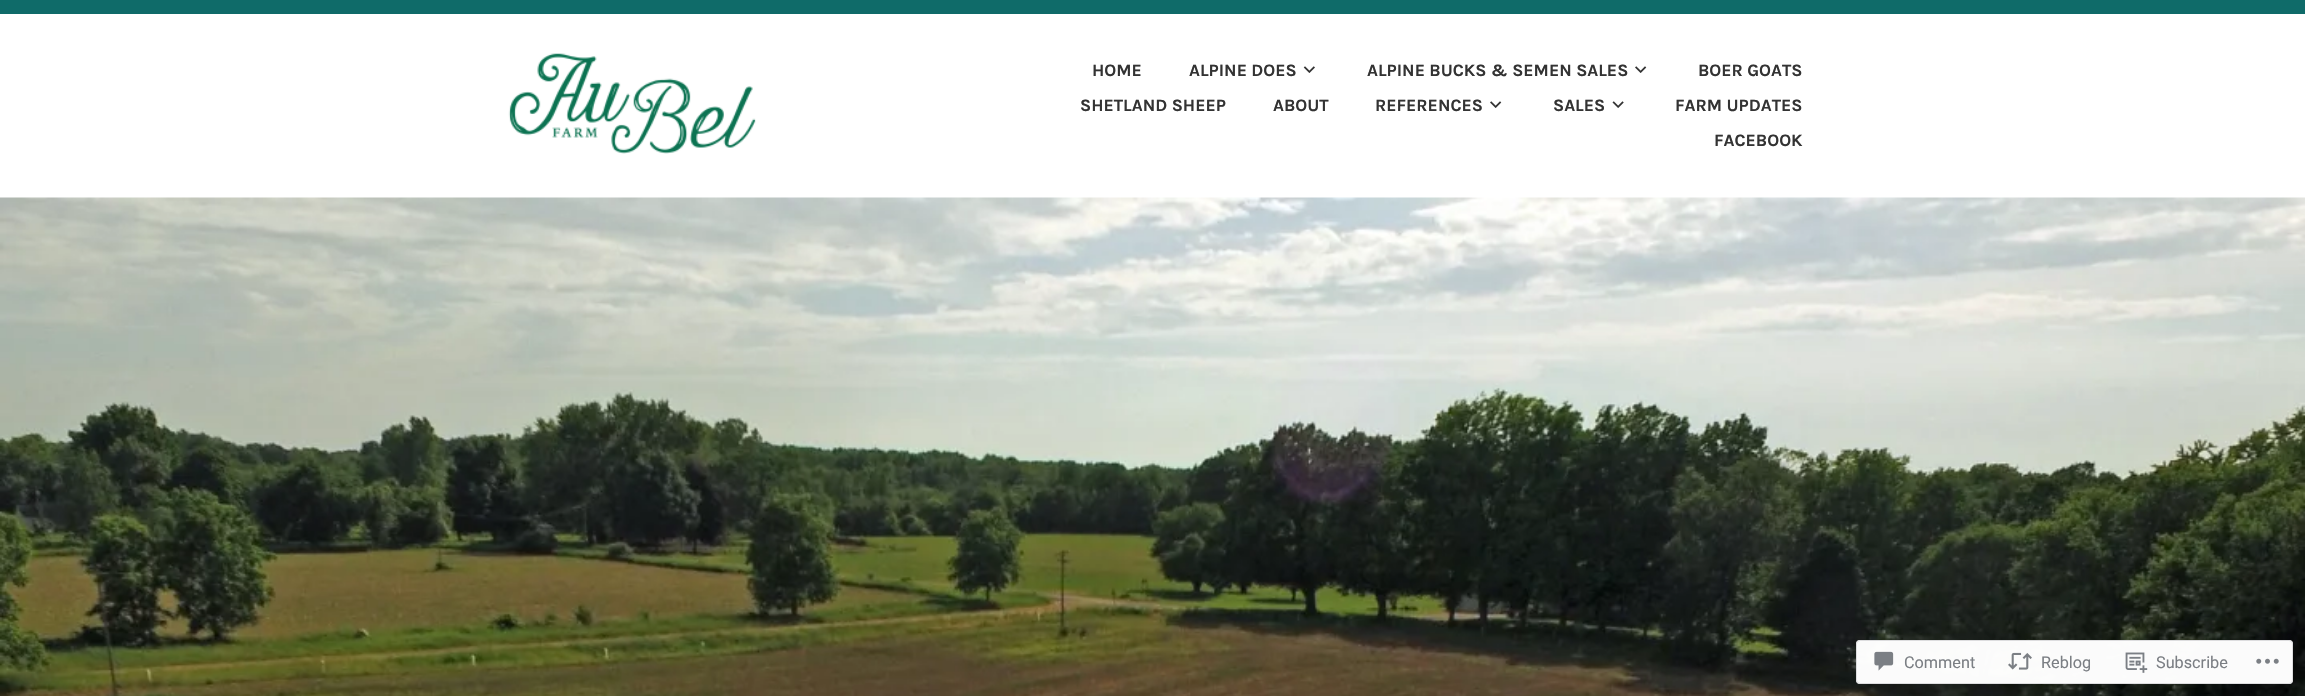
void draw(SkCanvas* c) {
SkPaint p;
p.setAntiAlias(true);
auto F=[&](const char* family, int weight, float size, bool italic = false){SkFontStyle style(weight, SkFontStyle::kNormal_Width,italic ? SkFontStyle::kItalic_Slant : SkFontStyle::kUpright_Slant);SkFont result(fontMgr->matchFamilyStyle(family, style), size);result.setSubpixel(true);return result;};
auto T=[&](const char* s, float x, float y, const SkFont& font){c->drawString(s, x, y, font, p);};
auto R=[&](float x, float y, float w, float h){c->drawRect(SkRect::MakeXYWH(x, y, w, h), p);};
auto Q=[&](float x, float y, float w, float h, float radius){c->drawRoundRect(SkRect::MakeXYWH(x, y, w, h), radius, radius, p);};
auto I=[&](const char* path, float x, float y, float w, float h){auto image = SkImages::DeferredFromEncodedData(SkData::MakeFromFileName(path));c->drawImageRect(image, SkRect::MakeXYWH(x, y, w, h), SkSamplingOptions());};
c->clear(0xffffffff);
p.setColor(0xff0f6b69);
R(0,0,2305,14);
I("1.png",508,53,248,101);
auto f1 = F("Karla",700,17.5);
p.setColor(0xff333333);
T("HOME",1092,76,f1);
T("ALPINE DOES",1189,76,f1);
I("2.png",1303,66,12,7);
T("ALPINE BUCKS & SEMEN SALES",1367,76,f1);
I("3.png",1635,66,12,7);
T("BOER GOATS",1698,76,f1);
T("SHETLAND SHEEP",1080,111,f1);
T("ABOUT",1273,111,f1);
T("REFERENCES",1375,111,f1);
I("3.png",1490,101,12,7);
T("SALES",1553,111,f1);
I("4.png",1612,101,12,7);
T("FARM UPDATES",1675,111,f1);
T("FACEBOOK",1714,146,f1);
I("5.png",0,197,2305,499);
p.setColor(0xfaffffff);
Q(1856,640,437,44,4);
p.setStroke(true);
p.setStrokeWidth(1);
p.setColor(0xfadcdcde);
c->drawRoundRect(SkRect::MakeXYWH(1856.5,640.5,436,43),3.5,3.5,p);
I("6.png",1874,651,20,20);
auto f2 = F("Roboto",400,16.25);
p.setStroke(false);
p.setColor(0xff7b7f84);
T("Comment",1904,668,f2);
I("7.png",2008,652,24,18);
T("Reblog",2041,668,f2);
I("8.png",2125,652,23,21);
T("Subscribe",2156,668,f2);
I("9.png",2256,658,23,6);
}
